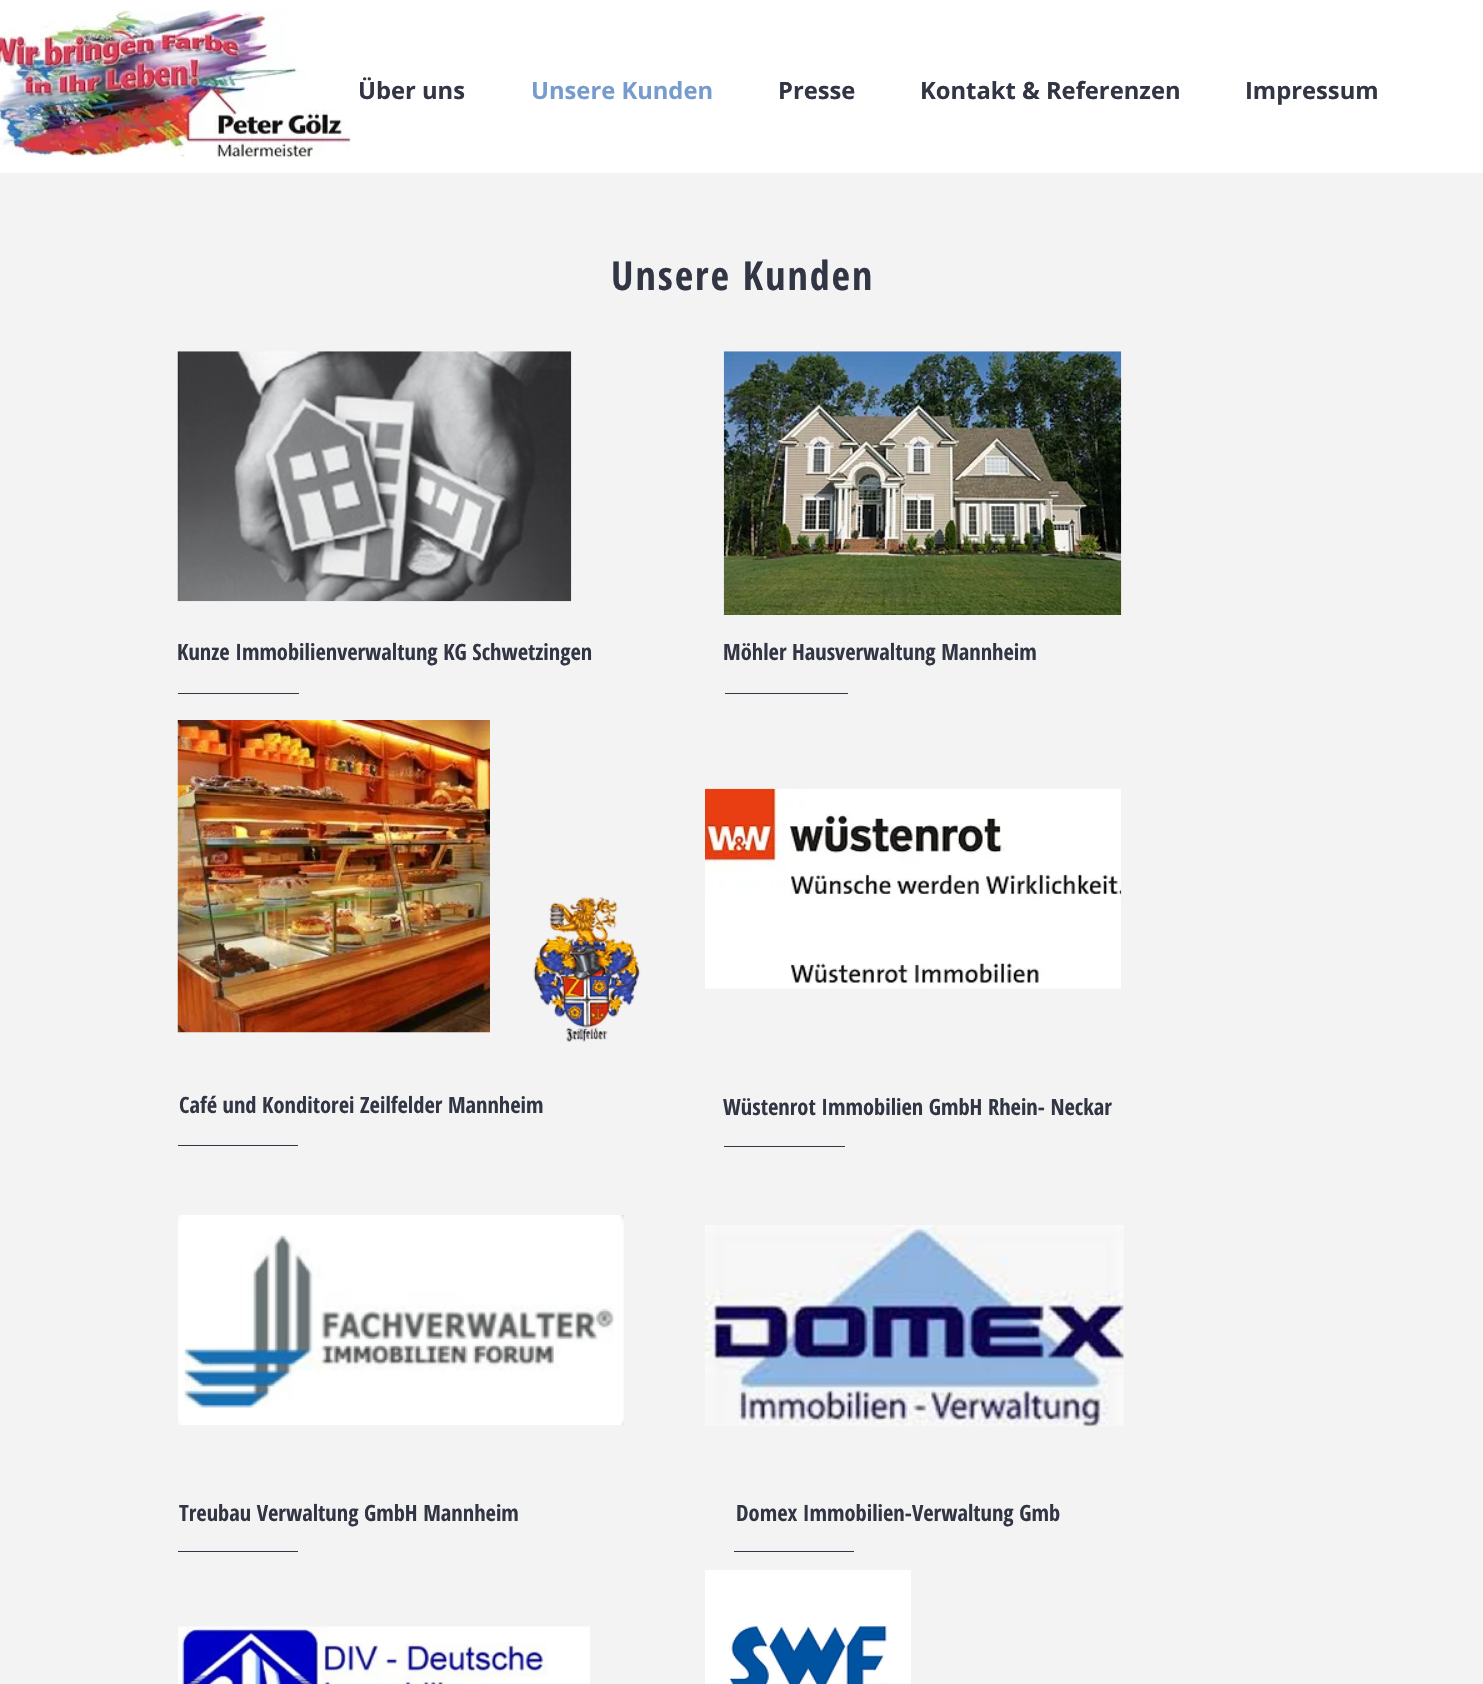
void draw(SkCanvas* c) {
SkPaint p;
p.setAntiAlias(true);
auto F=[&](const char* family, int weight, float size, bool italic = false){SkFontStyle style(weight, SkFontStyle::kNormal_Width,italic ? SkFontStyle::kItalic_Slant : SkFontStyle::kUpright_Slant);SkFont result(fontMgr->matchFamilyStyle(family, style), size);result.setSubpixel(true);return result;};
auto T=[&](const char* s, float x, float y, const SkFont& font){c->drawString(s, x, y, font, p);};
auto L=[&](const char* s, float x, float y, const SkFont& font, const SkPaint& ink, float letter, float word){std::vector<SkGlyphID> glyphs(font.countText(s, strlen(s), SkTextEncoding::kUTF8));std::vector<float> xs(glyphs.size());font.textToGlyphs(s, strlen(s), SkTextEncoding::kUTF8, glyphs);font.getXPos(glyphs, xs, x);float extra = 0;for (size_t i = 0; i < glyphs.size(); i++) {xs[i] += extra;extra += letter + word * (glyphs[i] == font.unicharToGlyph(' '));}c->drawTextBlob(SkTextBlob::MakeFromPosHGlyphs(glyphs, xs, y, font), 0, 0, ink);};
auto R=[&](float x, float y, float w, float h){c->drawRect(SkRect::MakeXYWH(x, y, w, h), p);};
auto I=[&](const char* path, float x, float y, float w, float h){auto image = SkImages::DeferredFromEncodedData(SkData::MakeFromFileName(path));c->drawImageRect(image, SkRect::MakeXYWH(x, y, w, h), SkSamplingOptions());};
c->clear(0xffffffff);
auto f1 = F("Open Sans",700,23.75);
p.setColor(0xff323644);
T("Über uns",358,99,f1);
p.setColor(0xff769ccd);
T("Unsere Kunden",531,99,f1);
p.setColor(0xff323644);
T("Presse",778,99,f1);
T("Kontakt & Referenzen",920,99,f1);
T("Impressum",1245,99,f1);
I("1.png",0,10,351,148);
p.setColor(0xfff3f3f3);
R(0,173,1483,1511);
auto f2 = F("Open Sans Condensed",700,40);
p.setColor(0xff323644);
L("Unsere Kunden",611,290,f2,p,2,0);
I("2.png",177,351,395,251);
I("3.png",723,351,399,264);
auto f3 = F("Open Sans Condensed",700,22.5);
T("Kunze Immobilienverwaltung KG Schwetzingen",177,660,f3);
R(178,693,121,1);
T("Möhler Hausverwaltung Mannheim",723,660,f3);
R(725,693,123,1);
I("4.png",177,720,313,313);
I("5.png",533,897,108,146);
I("6.png",705,788,417,201);
T("Café und Konditorei Zeilfelder Mannheim",179,1113,f3);
R(178,1145,120,1);
T("Wüstenrot Immobilien GmbH Rhein- Neckar",723,1115,f3);
R(724,1146,121,1);
I("7.png",178,1215,446,210);
I("8.png",705,1225,419,202);
T("Treubau Verwaltung GmbH Mannheim",179,1521,f3);
R(178,1551,120,1);
T("Domex Immobilien-Verwaltung Gmb",736,1521,f3);
R(734,1551,120,1);
I("9.png",178,1626,412,58);
I("10.png",705,1570,206,114);
}
